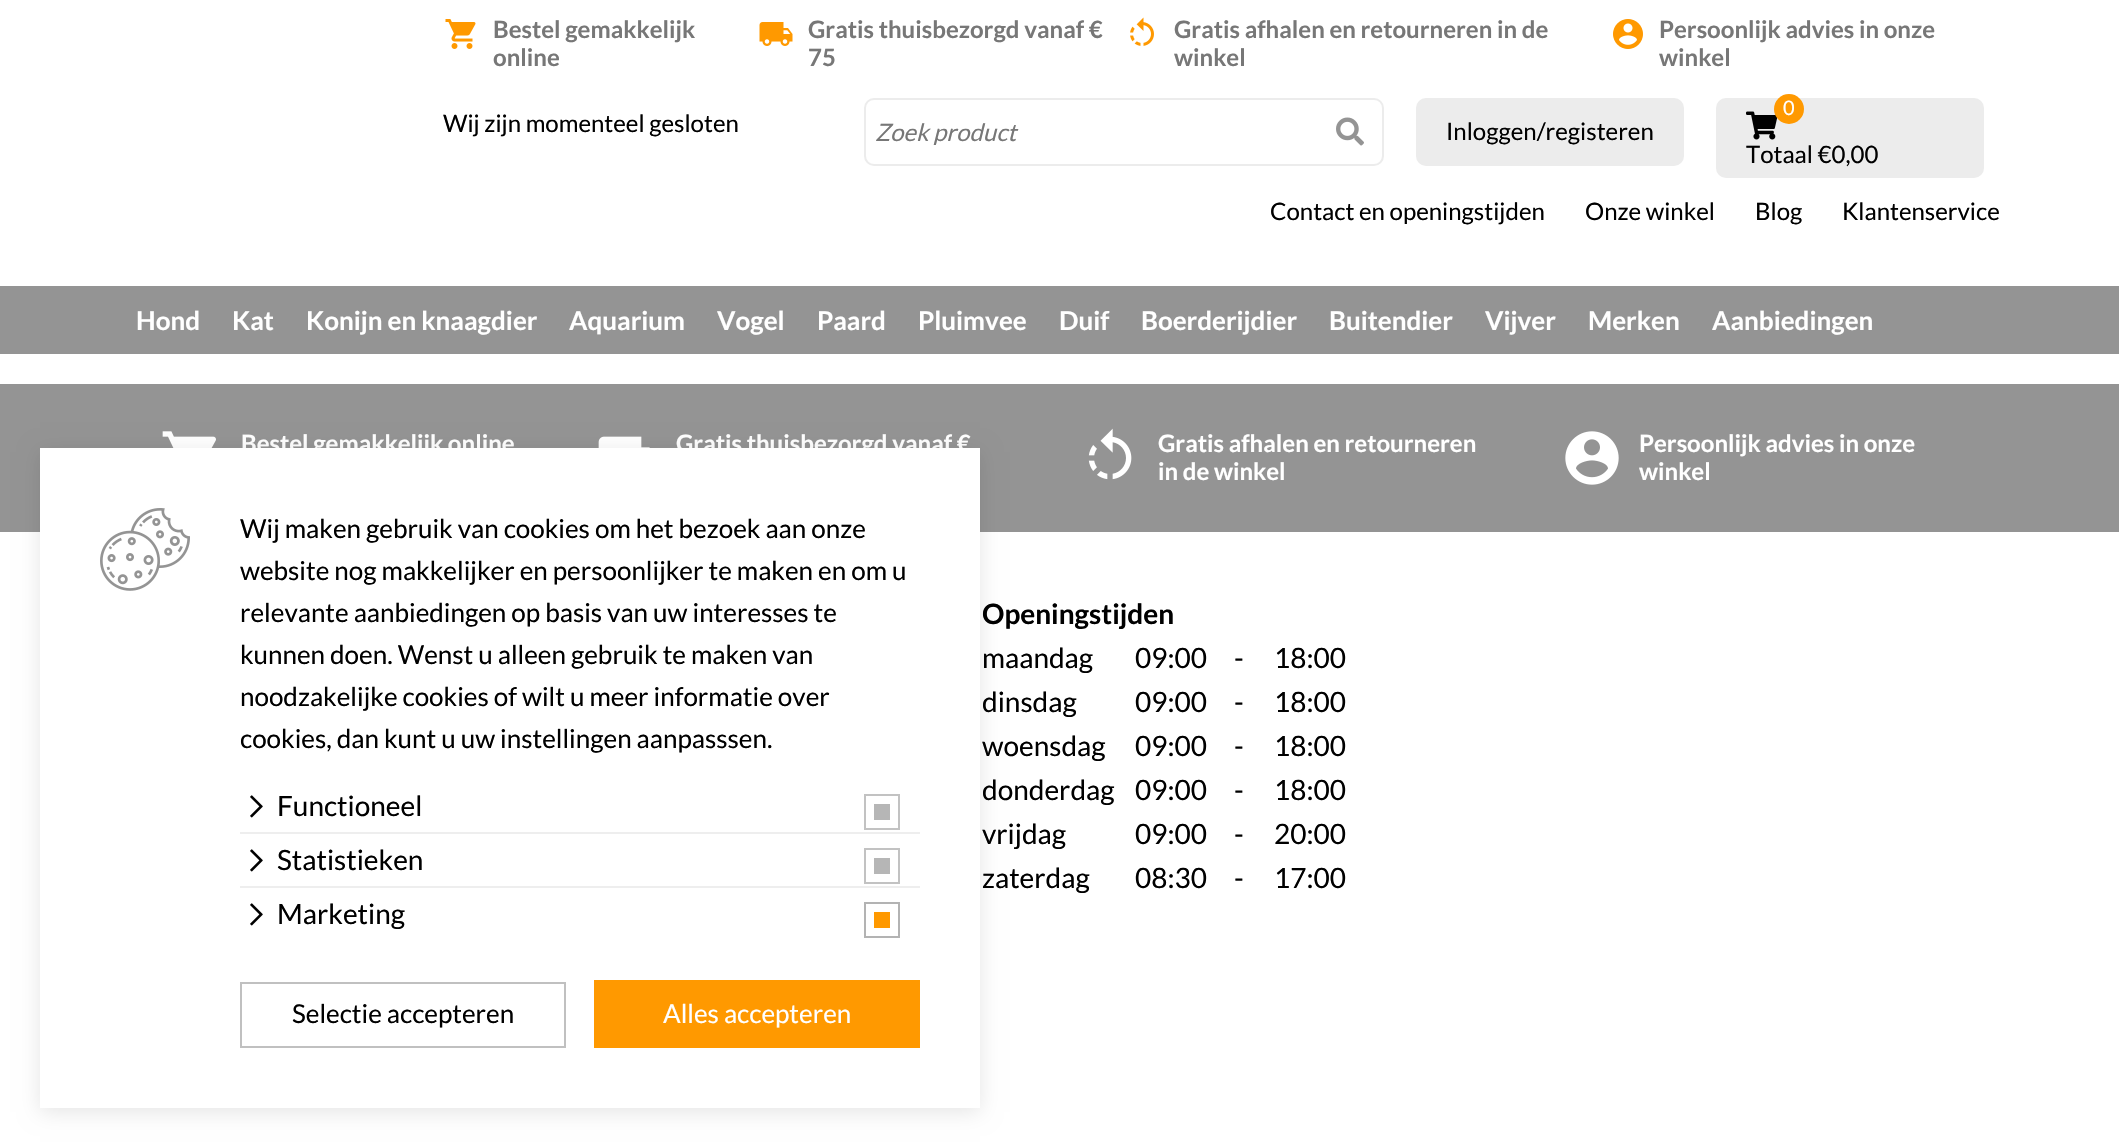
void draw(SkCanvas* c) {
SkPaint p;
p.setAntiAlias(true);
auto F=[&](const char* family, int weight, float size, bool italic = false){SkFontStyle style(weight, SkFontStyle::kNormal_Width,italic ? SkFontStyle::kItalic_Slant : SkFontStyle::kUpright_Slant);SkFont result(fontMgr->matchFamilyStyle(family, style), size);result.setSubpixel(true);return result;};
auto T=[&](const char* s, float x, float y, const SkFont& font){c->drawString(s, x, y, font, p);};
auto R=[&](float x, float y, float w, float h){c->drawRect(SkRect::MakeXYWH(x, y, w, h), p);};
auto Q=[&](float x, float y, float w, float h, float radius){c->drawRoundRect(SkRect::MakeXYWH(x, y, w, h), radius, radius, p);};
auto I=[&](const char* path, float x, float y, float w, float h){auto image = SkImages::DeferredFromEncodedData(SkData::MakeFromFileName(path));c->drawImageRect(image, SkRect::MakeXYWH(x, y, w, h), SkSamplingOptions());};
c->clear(0xffffffff);
I("1.png",445,19,31,30);
auto f1 = F("Lato",700,24);
p.setColor(0xff777777);
T("Bestel gemakkelijk",493,38,f1);
T("online",493,66,f1);
I("2.png",759,22,34,24);
T("Gratis thuisbezorgd vanaf €",808,38,f1);
T("75",808,66,f1);
I("3.png",1130,17,24,29);
T("Gratis afhalen en retourneren in de",1174,38,f1);
T("winkel",1174,66,f1);
I("4.png",1613,19,30,30);
T("Persoonlijk advies in onze",1659,38,f1);
T("winkel",1659,66,f1);
auto f2 = F("Lato",400,24);
p.setColor(0xff000000);
T("Wij zijn momenteel gesloten",443,132,f2);
p.setStroke(true);
p.setStrokeWidth(2);
p.setColor(0xffececec);
c->drawRoundRect(SkRect::MakeXYWH(865,99,518,66),9,9,p);
auto f3 = F("Lato",400,24,true);
p.setStroke(false);
p.setColor(0xff777777);
T("Zoek product",875,141,f3);
I("5.png",1336,117,28,29);
p.setColor(0xffececec);
Q(1416,98,268,68,10);
p.setColor(0xff000000);
T("Inloggen/registeren",1446,140,f2);
p.setColor(0xffececec);
Q(1716,98,268,80,10);
I("6.png",1746,111,32,29);
p.setColor(0xffff9900);
c->drawCircle(1789,109,15,p);
auto f4 = F("Lato",400,20);
p.setColor(0xffffffff);
T("0",1783,115,f4);
p.setColor(0xff000000);
T("Totaal €0,00",1746,163,f2);
T("Contact en openingstijden",1270,220,f2);
T("Onze winkel",1585,220,f2);
T("Blog",1755,220,f2);
T("Klantenservice",1842,220,f2);
p.setColor(0xff949494);
R(0,286,2119,68);
auto f5 = F("Lato",700,26);
p.setColor(0xffffffff);
T("Hond",136,330,f5);
T("Kat",232,330,f5);
T("Konijn en knaagdier",306,330,f5);
T("Aquarium",569,330,f5);
T("Vogel",717,330,f5);
T("Paard",817,330,f5);
T("Pluimvee",918,330,f5);
T("Duif",1059,330,f5);
T("Boerderijdier",1141,330,f5);
T("Buitendier",1329,330,f5);
T("Vijver",1485,330,f5);
T("Merken",1588,330,f5);
T("Aanbiedingen",1712,330,f5);
p.setColor(0xff949494);
R(0,384,2119,148);
I("7.png",162,431,54,17);
p.setColor(0xffffffff);
T("Bestel gemakkelijk online",241,452,f1);
I("8.png",598,436,52,12);
T("Gratis thuisbezorgd vanaf €",676,452,f1);
I("9.png",1088,428,44,52);
T("Gratis afhalen en retourneren",1158,452,f1);
T("in de winkel",1158,480,f1);
I("10.png",1565,431,54,54);
T("Persoonlijk advies in onze",1639,452,f1);
T("winkel",1639,480,f1);
auto f6 = F("Lato",700,28);
p.setColor(0xff000000);
T("Openingstijden",982,624,f6);
auto f7 = F("Lato",400,28);
T("maandag",982,668,f7);
T("09:00",1135,668,f7);
T("-",1234,668,f7);
T("18:00",1274,668,f7);
T("dinsdag",982,712,f7);
T("09:00",1135,712,f7);
T("-",1234,712,f7);
T("18:00",1274,712,f7);
T("woensdag",982,756,f7);
T("09:00",1135,756,f7);
T("-",1234,756,f7);
T("18:00",1274,756,f7);
T("donderdag",982,800,f7);
T("09:00",1135,800,f7);
T("-",1234,800,f7);
T("18:00",1274,800,f7);
T("vrijdag",982,844,f7);
T("09:00",1135,844,f7);
T("-",1234,844,f7);
T("20:00",1274,844,f7);
T("zaterdag",982,888,f7);
T("08:30",1135,888,f7);
T("-",1234,888,f7);
T("17:00",1274,888,f7);
p.setColor(0x1a000000);
p.setMaskFilter(SkMaskFilter::MakeBlur(kNormal_SkBlurStyle, 10));
c->drawRect(SkRect::MakeXYWH(40,452,940,660),p);
p.setMaskFilter(nullptr);
p.setColor(0xffffffff);
R(40,448,940,660);
I("11.png",100,508,90,83);
auto f8 = F("Lato",400,26);
p.setColor(0xff000000);
T("Wij maken gebruik van cookies om het bezoek aan onze",240,538,f8);
T("website nog makkelijker en persoonlijker te maken en om u",240,580,f8);
T("relevante aanbiedingen op basis van uw interesses te",240,622,f8);
T("kunnen doen. Wenst u alleen gebruik te maken van",240,664,f8);
T("noodzakelijke cookies of wilt u meer informatie over",240,706,f8);
T("cookies, dan kunt u uw instellingen aanpasssen.",240,748,f8);
I("12.png",250,795,13,23);
T("Functioneel",277,816,f7);
p.setStroke(true);
p.setColor(0xffc2c2c2);
c->drawRect(SkRect::MakeXYWH(865,795,34,34),p);
p.setStroke(false);
p.setColor(0xffb6b6b6);
R(874,804,16,16);
p.setColor(0xffeeeeee);
R(240,832,680,2);
I("12.png",250,849,13,23);
p.setColor(0xff000000);
T("Statistieken",277,870,f7);
p.setStroke(true);
p.setColor(0xffc2c2c2);
c->drawRect(SkRect::MakeXYWH(865,849,34,34),p);
p.setStroke(false);
p.setColor(0xffb6b6b6);
R(874,858,16,16);
p.setColor(0xffeeeeee);
R(240,886,680,2);
I("12.png",250,903,13,23);
p.setColor(0xff000000);
T("Marketing",277,924,f7);
p.setStroke(true);
p.setColor(0xffb3b3b3);
c->drawRect(SkRect::MakeXYWH(865,903,34,34),p);
p.setStroke(false);
p.setColor(0xffff9900);
R(874,912,16,16);
p.setStroke(true);
p.setColor(0xffc0c0c0);
c->drawRect(SkRect::MakeXYWH(241,983,324,64),p);
p.setStroke(false);
p.setColor(0xff000000);
T("Selectie accepteren",292,1023,f8);
p.setColor(0xffff9900);
R(594,980,326,68);
p.setColor(0xffffffff);
T("Alles accepteren",663,1023,f8);
}
